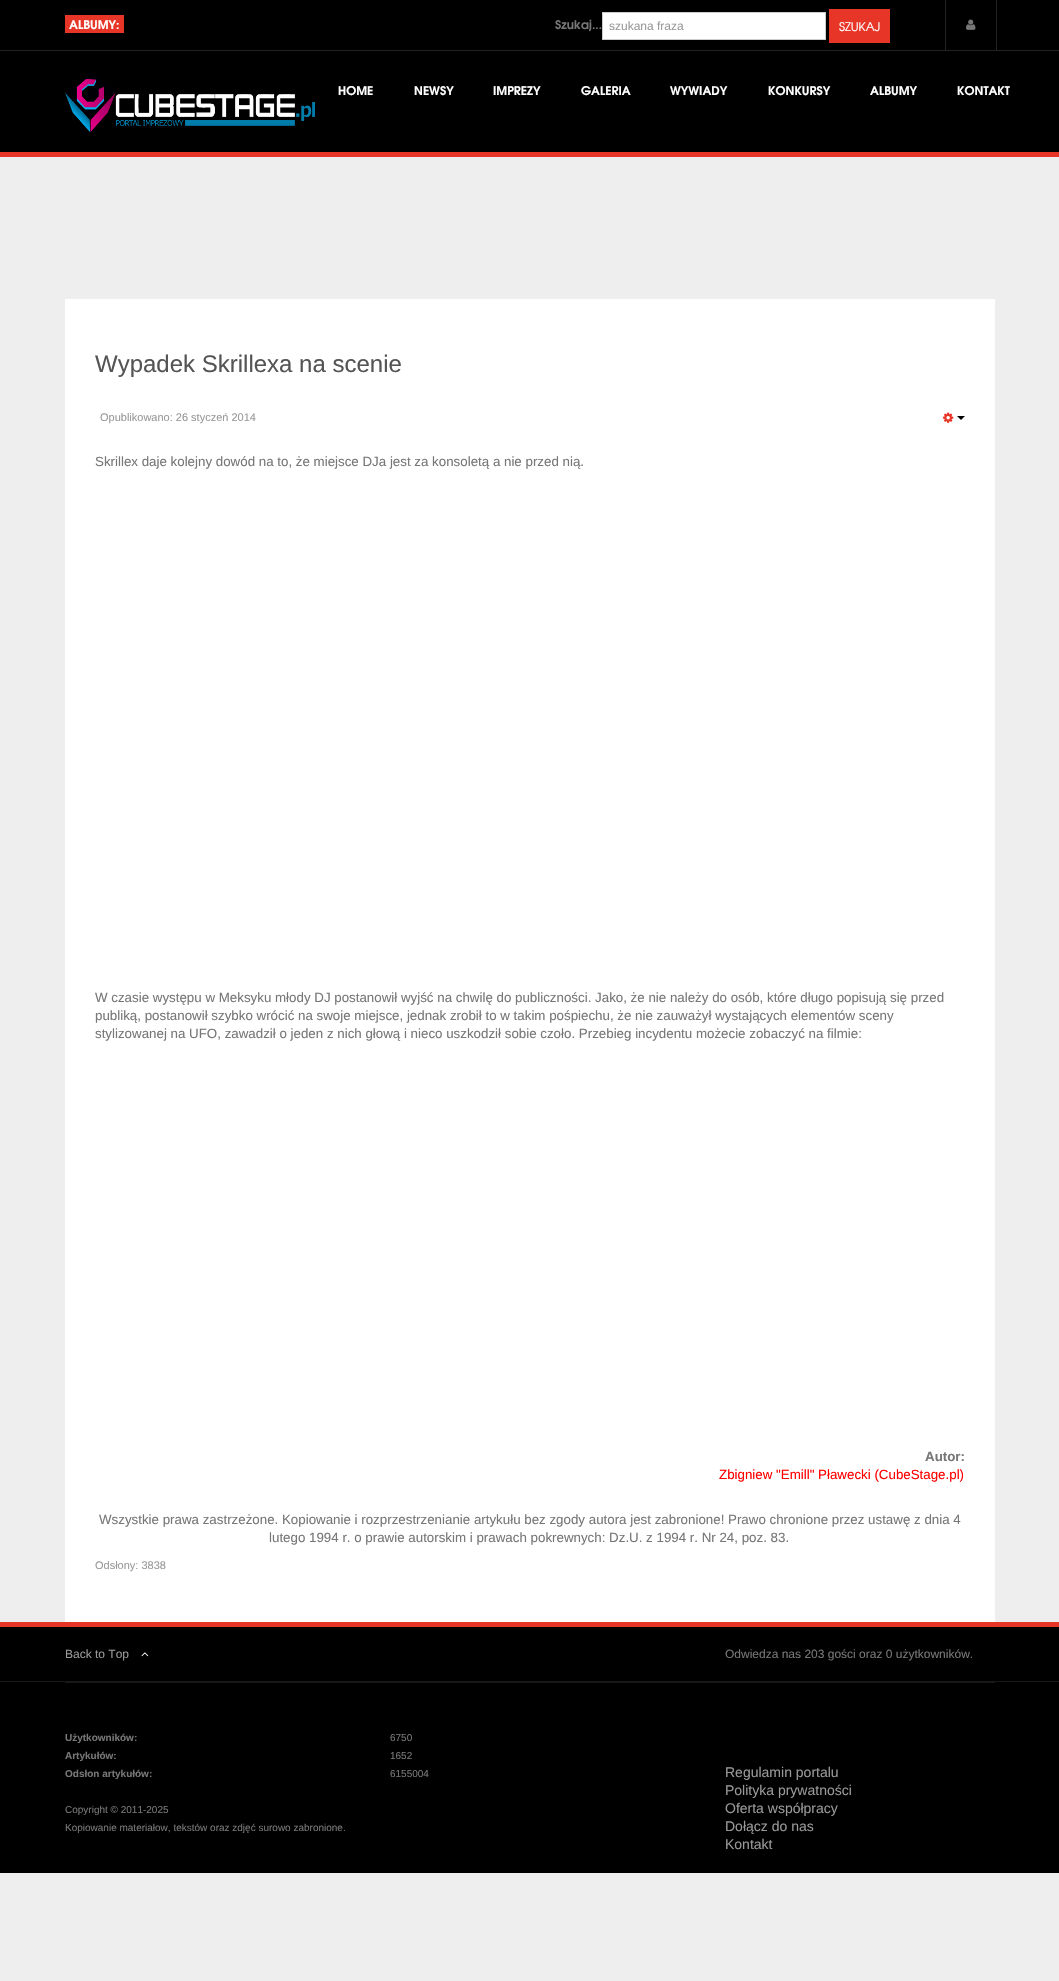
void draw(SkCanvas* c) {
SkPaint p;
p.setAntiAlias(true);
auto F=[&](const char* family, int weight, float size, bool italic = false){SkFontStyle style(weight, SkFontStyle::kNormal_Width,italic ? SkFontStyle::kItalic_Slant : SkFontStyle::kUpright_Slant);SkFont result(fontMgr->matchFamilyStyle(family, style), size);result.setSubpixel(true);return result;};
auto T=[&](const char* s, float x, float y, const SkFont& font){c->drawString(s, x, y, font, p);};
auto R=[&](float x, float y, float w, float h){c->drawRect(SkRect::MakeXYWH(x, y, w, h), p);};
auto I=[&](const char* path, float x, float y, float w, float h){auto image = SkImages::DeferredFromEncodedData(SkData::MakeFromFileName(path));c->drawImageRect(image, SkRect::MakeXYWH(x, y, w, h), SkSamplingOptions());};
auto P=[&](const char* data, bool evenOdd = false){SkPath result = *SkParsePath::FromSVGString(data);if (evenOdd) result.setFillType(SkPathFillType::kEvenOdd);return result;};
c->clear(0xffeeeeee);
p.setColor(0xff000000);
R(0,51,1059,101);
p.setColor(0xffe73628);
R(0,152,1059,5);
p.setColor(0xff000000);
R(0,0,1059,50);
p.setColor(0xff222222);
R(0,50,1059,1);
p.setColor(0xffe73628);
R(65,15,59,18);
auto f1 = F("TeX Gyre Adventor",700,12);
p.setColor(0xffffffff);
T("ALBUMY:",69,29,f1);
p.setColor(0xff777777);
T("Szukaj...",555,29,f1);
p.setColor(0xffffffff);
c->drawRect(SkRect::MakeXYWH(602.5,12.5,223,27),p);
p.setStroke(true);
p.setStrokeWidth(1);
p.setColor(0xffcccccc);
c->drawRect(SkRect::MakeXYWH(602.5,12.5,223,27),p);
auto f2 = F("Liberation Sans",400,12);
p.setStroke(false);
p.setColor(0xff999999);
T("szukana fraza",609,30,f2);
p.setColor(0xffe73628);
R(829,9,61,34);
auto f3 = F("TeX Gyre Adventor",400,12);
p.setColor(0xffffffff);
T("SZUKAJ",839,31,f3);
p.setColor(0xff222222);
R(996,0,1,50);
R(945,0,1,50);
I("1.png",966,19,10,11);
I("2.png",65,71,250,61);
p.setColor(0xffffffff);
T("HOME",338,95,f1);
T("NEWSY",414,95,f1);
T("IMPREZY",493,95,f1);
T("GALERIA",581,95,f1);
T("WYWIADY",670,95,f1);
T("KONKURSY",768,95,f1);
T("ALBUMY",870,95,f1);
T("KONTAKT",957,95,f1);
R(65,299,930,1323);
auto f4 = F("Liberation Sans",400,24);
p.setColor(0xff555555);
T("Wypadek Skrillexa na scenie",95,372,f4);
auto f5 = F("Liberation Sans",400,11);
p.setColor(0xff999999);
T("Opublikowano: 26 styczeń 2014",100,421,f5);
I("3.png",943,412,11,11);
p.setColor(0xff000000);
c->drawPath(P("M957 416h8l-4 4z"),p);
auto f6 = F("Liberation Sans",400,13.33);
p.setColor(0xff777777);
T("Skrillex daje kolejny dowód na to, że miejsce DJa jest za konsoletą a nie przed nią.",95,466,f6);
T("W czasie występu w Meksyku młody DJ postanowił wyjść na chwilę do publiczności. Jako, że nie należy do osób, które długo popisują się przed",95,1002,f6);
T("publiką, postanowił szybko wrócić na swoje miejsce, jednak zrobił to w takim pośpiechu, że nie zauważył wystających elementów sceny",95,1020,f6);
T("stylizowanej na UFO, zawadził o jeden z nich głową i nieco uszkodził sobie czoło. Przebieg incydentu możecie zobaczyć na filmie:",95,1038,f6);
auto f7 = F("Liberation Sans",700,13.33);
T("Autor:",925,1461,f7);
p.setColor(0xffff0000);
T("Zbigniew \"Emill\" Pławecki (CubeStage.pl)",719,1479,f6);
p.setColor(0xff777777);
T("Wszystkie prawa zastrzeżone. Kopiowanie i rozprzestrzenianie artykułu bez zgody autora jest zabronione! Prawo chronione przez ustawę z dnia 4",99,1524,f6);
T("lutego 1994 r. o prawie autorskim i prawach pokrewnych: Dz.U. z 1994 r. Nr 24, poz. 83.",269,1542,f6);
p.setColor(0xff999999);
T("Odsłony: 3838",95,1569,f5);
p.setColor(0xff000000);
R(0,1627,1059,54);
p.setColor(0xffe73628);
R(0,1622,1059,5);
p.setColor(0xff181818);
R(0,1681,1059,1);
p.setColor(0xff999999);
T("Back to Top",65,1658,f2);
I("4.png",141,1652,8,5);
p.setColor(0xff777777);
T("Odwiedza nas 203 gości oraz 0 użytkowników.",725,1658,f2);
p.setColor(0xff000000);
R(0,1682,1059,191);
p.setColor(0xff181818);
R(65,1682,930,1);
auto f8 = F("Liberation Sans",700,10);
p.setColor(0xff777777);
T("Użytkowników:",65,1741,f8);
auto f9 = F("Liberation Sans",400,10);
T("6750",390,1741,f9);
T("Artykułów:",65,1759,f8);
T("1652",390,1759,f9);
T("Odsłon artykułów:",65,1777,f8);
T("6155004",390,1777,f9);
T("Copyright © 2011-2025",65,1813,f9);
auto f10 = F("Liberation Sans",400,14);
p.setColor(0xff999999);
T("Regulamin portalu",725,1777,f10);
T("Polityka prywatności",725,1795,f10);
T("Oferta współpracy",725,1813,f10);
T("Dołącz do nas",725,1831,f10);
T("Kontakt",725,1849,f10);
p.setColor(0xff777777);
T("Kopiowanie materiałow, tekstów oraz zdjęć surowo zabronione.",65,1831,f9);
}
